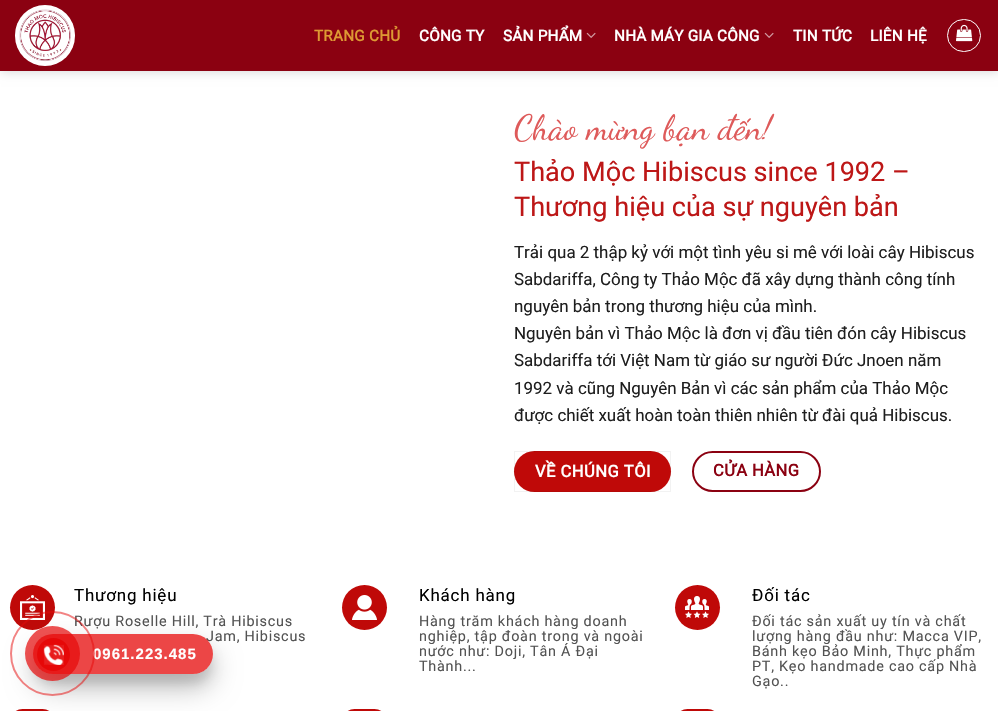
void draw(SkCanvas* c) {
SkPaint p;
p.setAntiAlias(true);
auto F=[&](const char* family, int weight, float size, bool italic = false){SkFontStyle style(weight, SkFontStyle::kNormal_Width,italic ? SkFontStyle::kItalic_Slant : SkFontStyle::kUpright_Slant);SkFont result(fontMgr->matchFamilyStyle(family, style), size);result.setSubpixel(true);return result;};
auto T=[&](const char* s, float x, float y, const SkFont& font){c->drawString(s, x, y, font, p);};
auto L=[&](const char* s, float x, float y, const SkFont& font, const SkPaint& ink, float letter, float word){std::vector<SkGlyphID> glyphs(font.countText(s, strlen(s), SkTextEncoding::kUTF8));std::vector<float> xs(glyphs.size());font.textToGlyphs(s, strlen(s), SkTextEncoding::kUTF8, glyphs);font.getXPos(glyphs, xs, x);float extra = 0;for (size_t i = 0; i < glyphs.size(); i++) {xs[i] += extra;extra += letter + word * (glyphs[i] == font.unicharToGlyph(' '));}c->drawTextBlob(SkTextBlob::MakeFromPosHGlyphs(glyphs, xs, y, font), 0, 0, ink);};
auto R=[&](float x, float y, float w, float h){c->drawRect(SkRect::MakeXYWH(x, y, w, h), p);};
auto Q=[&](float x, float y, float w, float h, float radius){c->drawRoundRect(SkRect::MakeXYWH(x, y, w, h), radius, radius, p);};
auto I=[&](const char* path, float x, float y, float w, float h){auto image = SkImages::DeferredFromEncodedData(SkData::MakeFromFileName(path));c->drawImageRect(image, SkRect::MakeXYWH(x, y, w, h), SkSamplingOptions());};
auto P=[&](const char* data, bool evenOdd = false){SkPath result = *SkParsePath::FromSVGString(data);if (evenOdd) result.setFillType(SkPathFillType::kEvenOdd);return result;};
c->clear(0xffffffff);
p.setColor(0x26000000);
p.setMaskFilter(SkMaskFilter::MakeBlur(kNormal_SkBlurStyle, 5));
c->drawRect(SkRect::MakeXYWH(1,1,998,71),p);
p.setMaskFilter(nullptr);
p.setColor(0xff8b0111);
R(0,0,998,71);
p.setColor(0xffffffff);
Q(15,5,60,61,30);
I("1.png",19,9,52,53);
auto f1 = F("Roboto",700,15.25);
p.setColor(0xffdd9933);
L("TRANG CHỦ",314,41,f1,p,.25,0);
p.setColor(0xffffffff);
L("CÔNG TY",419,41,f1,p,.25,0);
L("SẢN PHẨM",503,41,f1,p,.25,0);
I("2.png",586,32,10,6);
L("NHÀ MÁY GIA CÔNG",614,41,f1,p,.25,0);
I("2.png",764,32,10,6);
L("TIN TỨC",793,41,f1,p,.25,0);
L("LIÊN HỆ",870,41,f1,p,.25,0);
p.setStroke(true);
p.setStrokeWidth(1);
c->drawRoundRect(SkRect::MakeXYWH(947.5,19.5,33,32),16,16,p);
I("3.png",956,24,17,18);
auto f2 = F("Dancing Script",400,35);
p.setStroke(false);
p.setColor(0xffde5a5a);
T("Chào mừng bạn đến!",514,139,f2);
auto f3 = F("Roboto",400,27.1);
p.setColor(0xffbd1717);
T("Thảo Mộc Hibiscus since 1992 –",514,181,f3);
T("Thương hiệu của sự nguyên bản",514,216,f3);
auto f4 = F("Roboto",400,16.95);
p.setColor(0xff1e1e1e);
T("Trải qua 2 thập kỷ với một tình yêu si mê với loài cây Hibiscus",514,258,f4);
T("Sabdariffa, Công ty Thảo Mộc đã xây dựng thành công tính",514,285,f4);
T("nguyên bản trong thương hiệu của mình.",514,312,f4);
T("Nguyên bản vì Thảo Mộc là đơn vị đầu tiên đón cây Hibiscus",514,339,f4);
T("Sabdariffa tới Việt Nam từ giáo sư người Đức Jnoen năm",514,366,f4);
T("1992 và cũng Nguyên Bản vì các sản phẩm của Thảo Mộc",514,394,f4);
T("được chiết xuất hoàn toàn thiên nhiên từ đài quả Hibiscus.",514,421,f4);
p.setColor(0xffbf0908);
Q(514,451,157,41,20.5);
p.setStroke(true);
p.setColor(0x0d000000);
c->drawRect(SkRect::MakeXYWH(514.5,451.5,156,40),p);
auto f5 = F("Roboto",700,16.5);
p.setStroke(false);
p.setColor(0xffffffff);
L("VỀ CHÚNG TÔI",535,477,f5,p,.5,0);
p.setStroke(true);
p.setStrokeWidth(2);
p.setColor(0xff8b0111);
c->drawRoundRect(SkRect::MakeXYWH(693,452,127,39),19.5,19.5,p);
p.setStroke(false);
L("CỬA HÀNG",713,476,f5,p,.5,0);
p.setColor(0xffbf0908);
c->drawCircle(32.5,607.5,22.5,p);
I("4.png",20,595,25,25);
p.setColor(0xff000000);
L("Thương hiệu",74,601,f4,p,.8,0);
auto f6 = F("Roboto",400,14.4);
p.setColor(0xff535353);
L("Rượu Roselle Hill, Trà Hibiscus",74,626,f6,p,.75,0);
L("Jam, Hibiscus",206,641,f6,p,.75,0);
p.setColor(0xffbf0908);
c->drawCircle(364.5,607.5,22.5,p);
I("5.png",352,595,25,25);
p.setColor(0xff000000);
L("Khách hàng",419,601,f4,p,.8,0);
p.setColor(0xff535353);
L("Hàng trăm khách hàng doanh",419,626,f6,p,.75,0);
L("nghiệp, tập đoàn trong và ngoài",419,641,f6,p,.75,0);
L("nước như: Doji, Tân Á Đại",419,656,f6,p,.75,0);
L("Thành...",419,671,f6,p,.75,0);
p.setColor(0xffbf0908);
c->drawCircle(697.5,607.5,22.5,p);
I("6.png",685,596,24,22);
p.setColor(0xff000000);
L("Đối tác",752,601,f4,p,.8,0);
p.setColor(0xff535353);
L("Đối tác sản xuất uy tín và chất",752,626,f6,p,.75,0);
L("lượng hàng đầu như: Macca VIP,",752,641,f6,p,.75,0);
L("Bánh kẹo Bảo Minh, Thực phẩm",752,656,f6,p,.75,0);
L("PT, Kẹo handmade cao cấp Nhà",752,671,f6,p,.75,0);
L("Gạo..",752,686,f6,p,.75,0);
p.setColor(0xffbf0908);
Q(10,709,45,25,22.5);
Q(342,709,45,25,22.5);
Q(675,709,45,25,22.5);
c->save();
c->clipPath(P("M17 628h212v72h-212zm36 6h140c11 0 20 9 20 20c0 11-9 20-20 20h-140c-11 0-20-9-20-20c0-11 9-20 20-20z",true),true);
p.setColor(0x1a000000);
p.setMaskFilter(SkMaskFilter::MakeBlur(kNormal_SkBlurStyle, 5));
c->drawRoundRect(SkRect::MakeXYWH(33,644,180,40),20,20,p);
p.setMaskFilter(nullptr);
c->restore();
c->save();
c->clipPath(P("M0 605h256v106h-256zm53 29h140c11 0 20 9 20 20c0 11-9 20-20 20h-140c-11 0-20-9-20-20c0-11 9-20 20-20z",true),true);
p.setColor(0x40000000);
p.setMaskFilter(SkMaskFilter::MakeBlur(kNormal_SkBlurStyle, 14));
c->drawRoundRect(SkRect::MakeXYWH(33,648,180,40),20,20,p);
p.setMaskFilter(nullptr);
c->restore();
p.setColor(0xbfe60808);
Q(33,634,180,40,20);
auto f7 = F("Liberation Sans",700,15);
p.setColor(0xffffffff);
L("0961.223.485",93,659,f7,p,1,0);
p.setStroke(true);
p.setColor(0x80e60808);
c->drawCircle(52.5,653.5,41.5,p);
p.setStroke(false);
p.setColor(0xb3e60808);
c->drawCircle(52.5,653.5,27.5,p);
p.setColor(0xffe60808);
c->drawCircle(53.5,654.5,16.5,p);
I("7.png",43,644,21,21);
}
